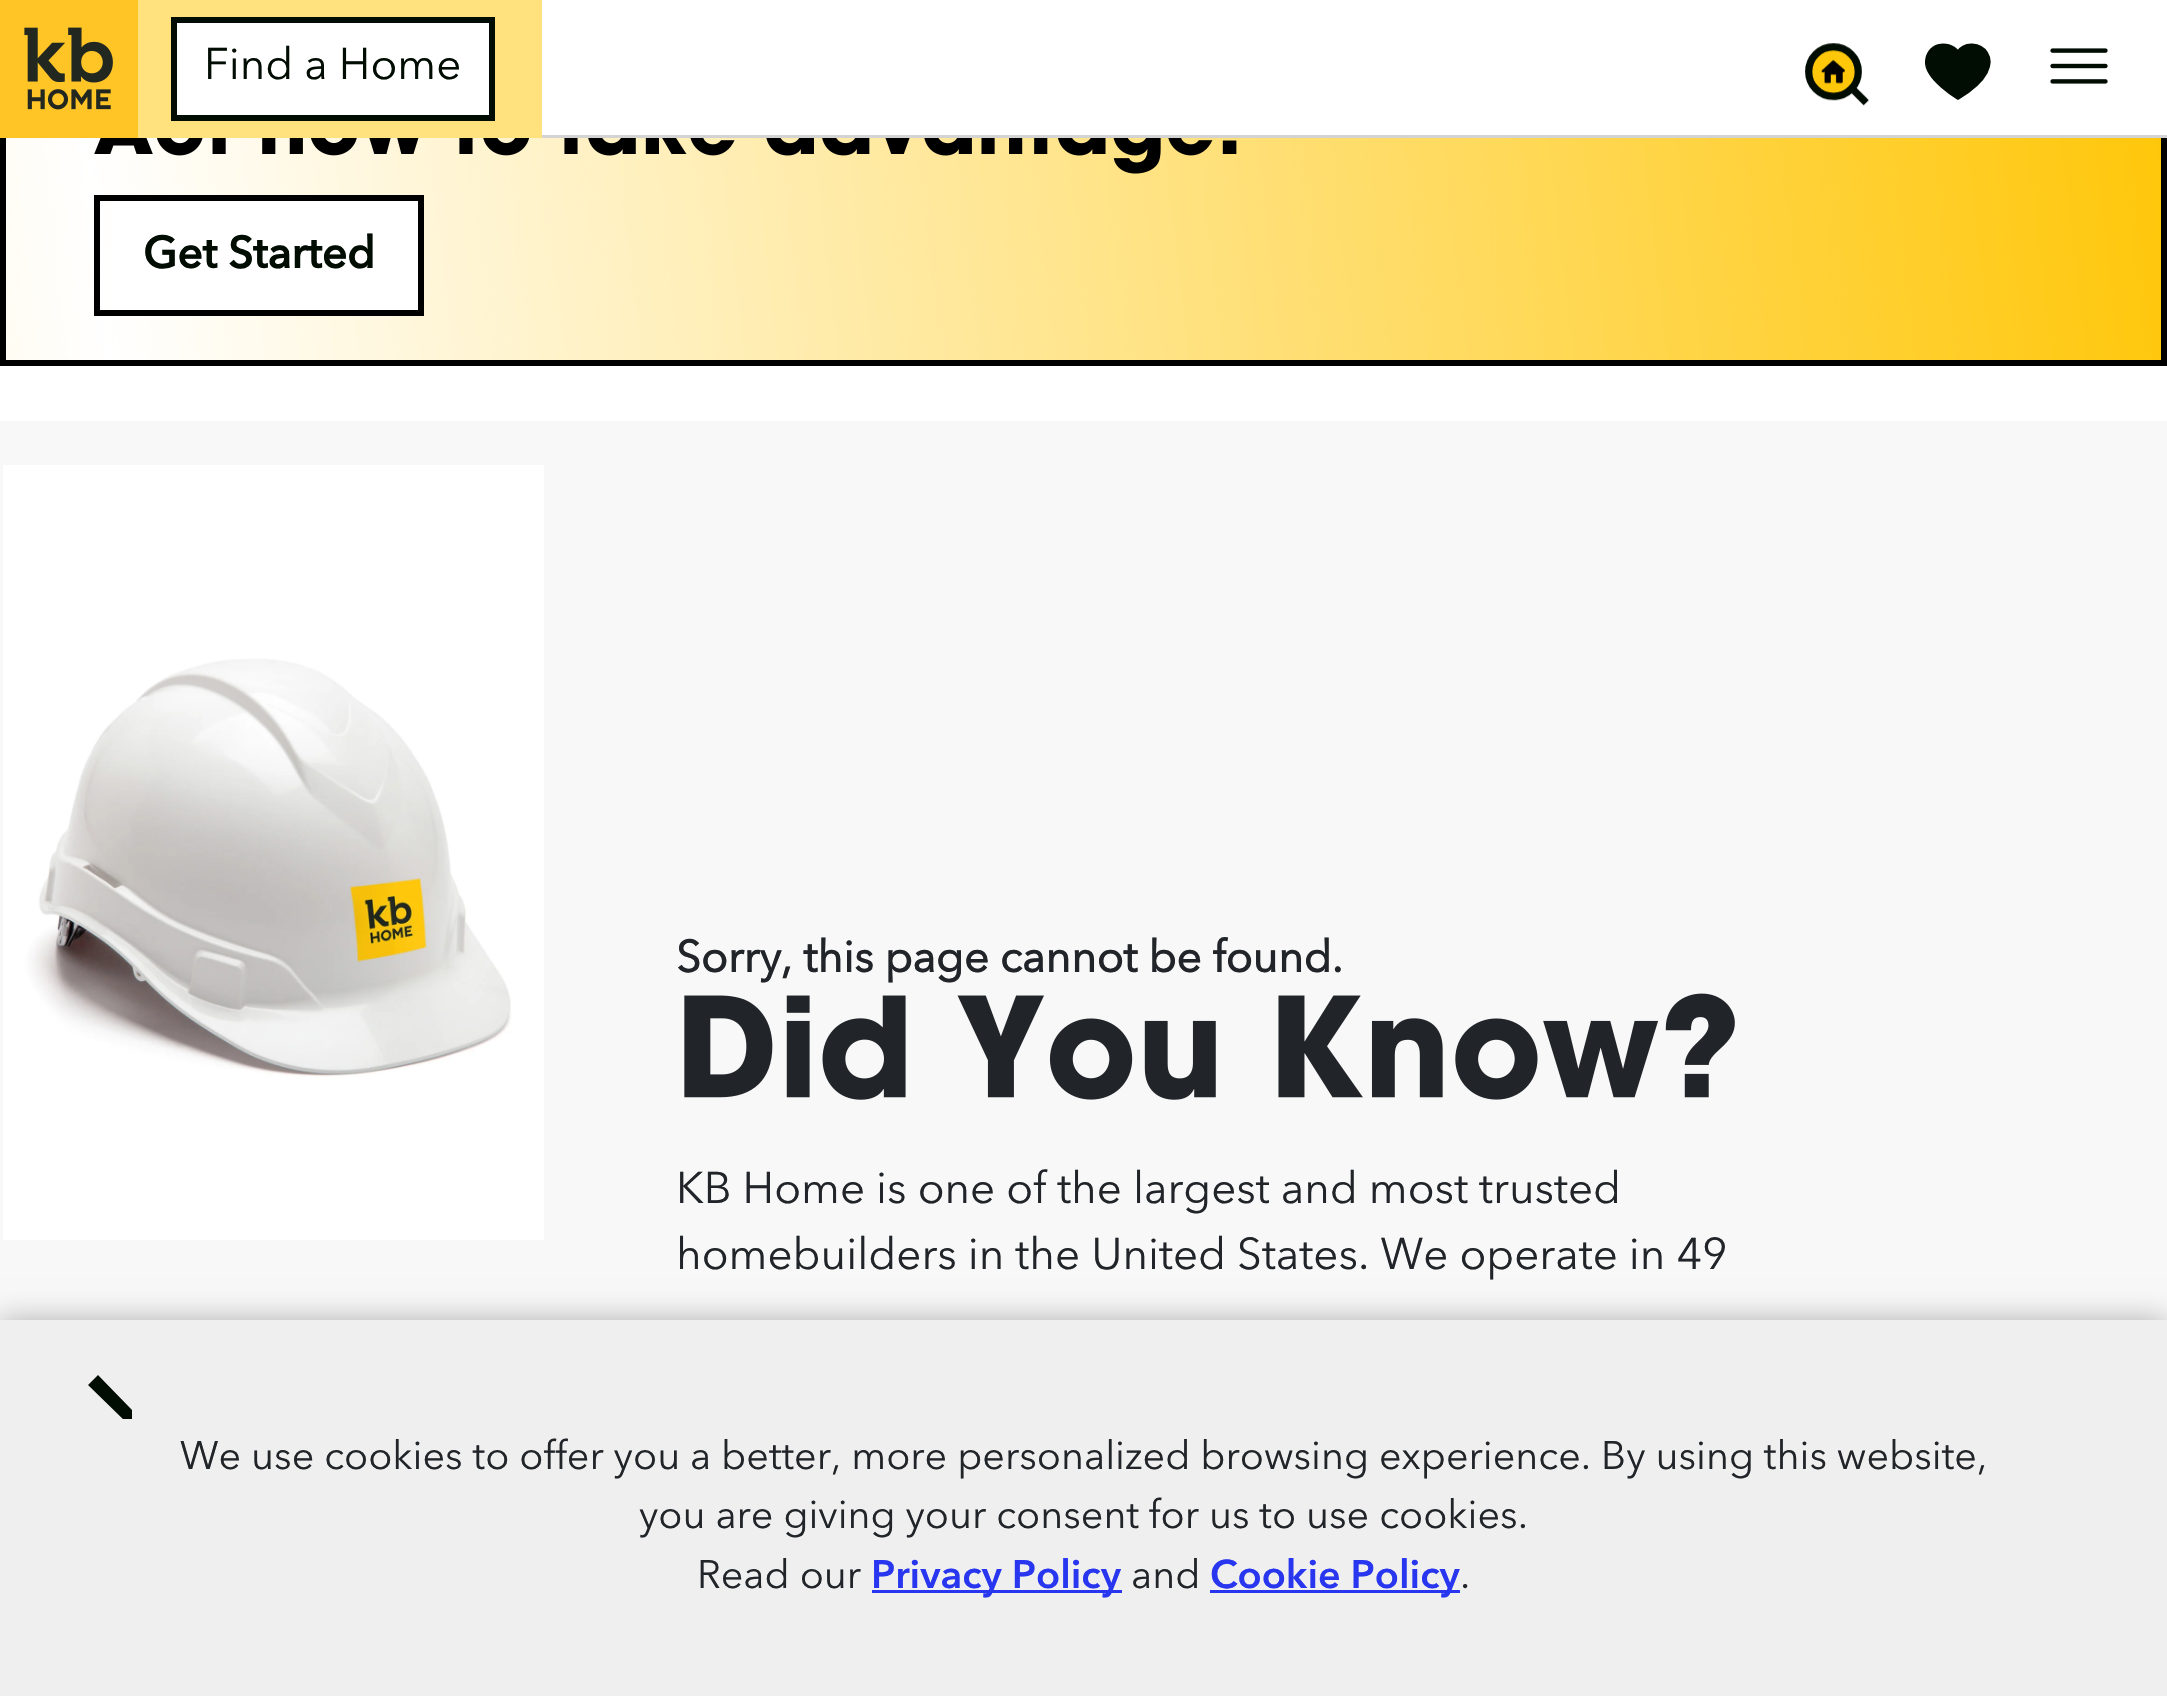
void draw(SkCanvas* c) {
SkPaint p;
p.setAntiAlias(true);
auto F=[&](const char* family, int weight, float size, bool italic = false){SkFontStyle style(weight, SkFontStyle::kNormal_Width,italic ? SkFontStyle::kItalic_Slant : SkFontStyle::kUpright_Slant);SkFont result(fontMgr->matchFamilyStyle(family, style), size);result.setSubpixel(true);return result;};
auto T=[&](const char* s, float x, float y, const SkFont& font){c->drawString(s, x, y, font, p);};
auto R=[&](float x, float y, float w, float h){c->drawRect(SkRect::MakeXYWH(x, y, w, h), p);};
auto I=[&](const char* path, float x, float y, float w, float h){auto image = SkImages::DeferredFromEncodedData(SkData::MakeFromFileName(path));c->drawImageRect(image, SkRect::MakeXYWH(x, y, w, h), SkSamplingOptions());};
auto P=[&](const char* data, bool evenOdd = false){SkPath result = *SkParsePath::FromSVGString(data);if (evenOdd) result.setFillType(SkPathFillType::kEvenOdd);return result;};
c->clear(0xfff8f8f8);
I("4.png",6,138,2155,222);
p.setStroke(true);
p.setStrokeWidth(6);
p.setColor(0xff000000);
c->drawRect(SkRect::MakeXYWH(3,-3,2161,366),p);
I("1.png",0,0,138,138);
p.setStroke(false);
p.setColor(0xffffe27e);
R(138,0,404,138);
p.setColor(0xffffffff);
c->drawRect(SkRect::MakeXYWH(174,20,318,98),p);
p.setStroke(true);
p.setColor(0xff010c03);
c->drawRect(SkRect::MakeXYWH(174,20,318,98),p);
auto f1 = F("Avenir Next",400,44);
p.setStroke(false);
T("Find a Home",204,79,f1);
p.setColor(0xffffffff);
R(542,0,1625,135);
p.setColor(0xffd3d3d3);
R(542,135,1625,3);
I("2.png",1805,43,64,63);
p.setColor(0xff010c03);
c->drawPath(P("M1958 54c-12-15-30-7-30 9c0 16 30 34 30 34c60-36 14-65 0-43z"),p);
p.setStroke(true);
p.setStrokeWidth(5.1);
c->drawPath(P("M1958 53.5c-11.5-14-30.5-7-30.5 9c0 16 30.5 34.5 30.5 34.5c60-36 14-65 0-43.5z"),p);
I("3.png",2050,48,58,36);
p.setStroke(false);
p.setColor(0xffffffff);
R(0,366,2167,55);
I("5.png",94,138,1143,36);
R(112,201,306,109);
p.setStroke(true);
p.setStrokeWidth(6);
p.setColor(0xff000000);
c->drawRect(SkRect::MakeXYWH(97,198,324,115),p);
auto f2 = F("Avenir Next",700,44);
p.setStroke(false);
p.setColor(0xff010c03);
T("Get Started",143,268,f2);
I("6.png",3,465,541,775);
auto f3 = F("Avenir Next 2",700,44);
p.setColor(0xff212529);
T("Sorry, this page cannot be found.",676,972,f3);
I("7.png",684,993,1051,107);
T("KB Home is one of the largest and most trusted",676,1203,f1);
T("homebuilders in the United States. We operate in 49",676,1269,f1);
p.setColor(0x4d000000);
p.setMaskFilter(SkMaskFilter::MakeBlur(kNormal_SkBlurStyle, 14));
c->drawRect(SkRect::MakeXYWH(0,1320,2167,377),p);
p.setMaskFilter(nullptr);
p.setColor(0xffefefef);
R(0,1320,2167,376);
c->save();
c->clipRect(SkRect::MakeXYWH(88,1375,44,44));
p.setColor(0xff010c03);
c->drawPath(P("M184 1385l-9-10l-39 39l-38-39l-10 10l39 38l-39 39l10 9l38-38l39 38l9-9l-38-39z"),p);
c->restore();
auto f4 = F("Avenir Next",400,39.6);
p.setColor(0xff212529);
T("We use cookies to offer you a better, more personalized browsing experience. By using this website,",180,1469,f4);
T("you are giving your consent for us to use cookies.",639,1528,f4);
T("Read our",697,1588,f4);
p.setColor(0xff2836f0);
R(872,1590,250,3);
auto f5 = F("Avenir Next",600,39.6);
T("Privacy Policy",871,1588,f5);
p.setColor(0xff212529);
T("and",1131,1588,f4);
p.setColor(0xff2836f0);
R(1210,1590,250,3);
T("Cookie Policy",1210,1588,f5);
p.setColor(0xff212529);
T(".",1460,1588,f4);
}
